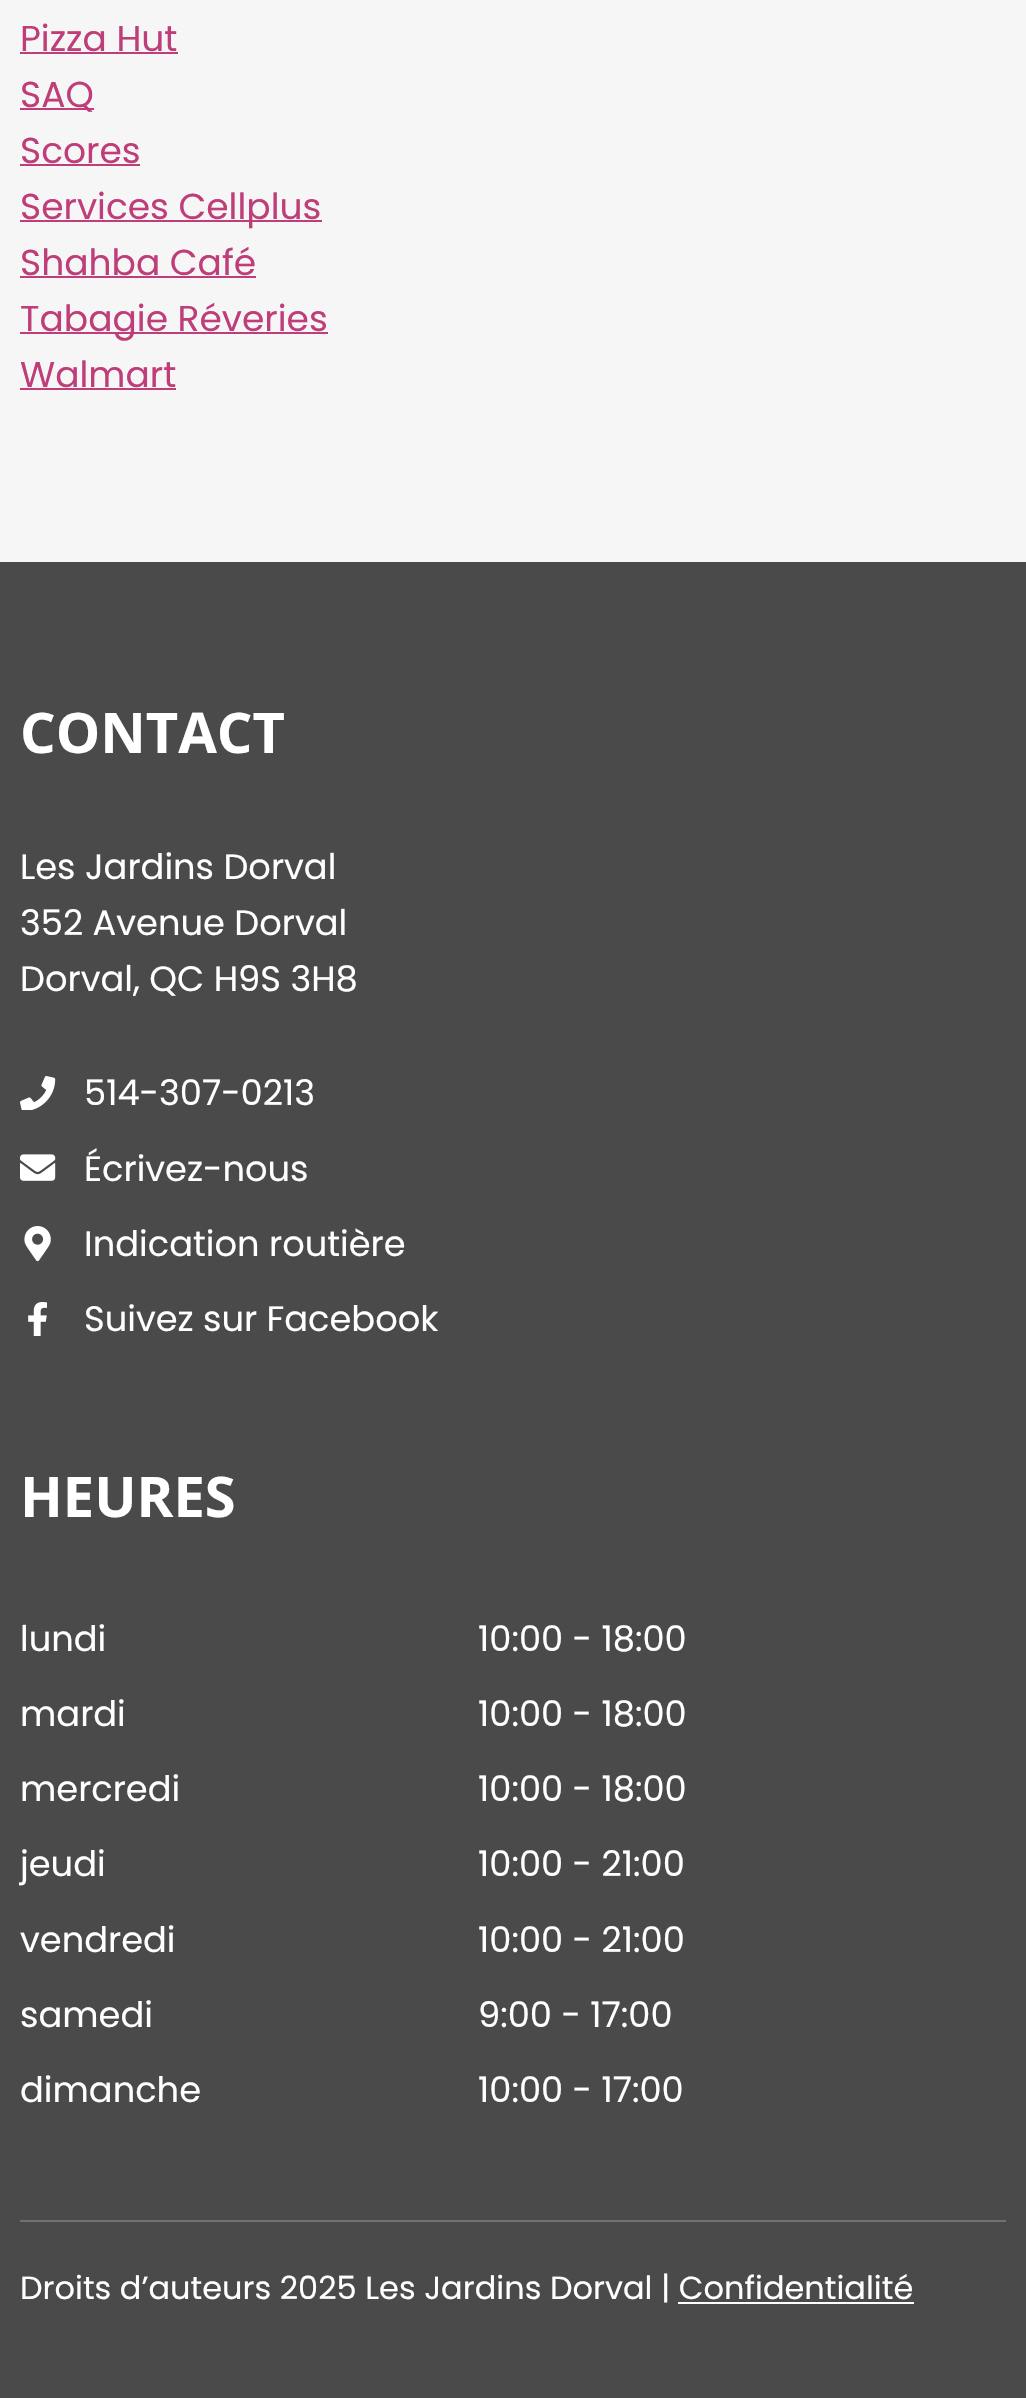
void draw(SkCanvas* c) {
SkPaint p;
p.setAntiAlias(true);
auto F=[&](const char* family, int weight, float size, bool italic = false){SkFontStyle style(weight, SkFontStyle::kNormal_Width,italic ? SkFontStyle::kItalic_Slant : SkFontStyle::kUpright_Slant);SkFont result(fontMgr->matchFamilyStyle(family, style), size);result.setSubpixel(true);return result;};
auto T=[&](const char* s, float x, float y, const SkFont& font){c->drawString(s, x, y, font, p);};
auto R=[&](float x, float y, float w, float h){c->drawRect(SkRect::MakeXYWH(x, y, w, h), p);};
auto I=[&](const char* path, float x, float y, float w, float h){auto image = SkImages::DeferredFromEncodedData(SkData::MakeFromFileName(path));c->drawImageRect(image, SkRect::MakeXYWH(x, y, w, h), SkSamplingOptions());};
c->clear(0xfff6f6f6);
auto f1 = F("Poppins",400,36);
p.setColor(0xffbf3d78);
T("Pizza Hut",20,51,f1);
R(20,52,158,2);
R(20,108,74,2);
T("SAQ",20,107,f1);
T("Scores",20,163,f1);
R(20,164,120,2);
R(20,220,302,2);
T("Services Cellplus",20,219,f1);
T("Shahba Café",20,275,f1);
R(20,276,236,2);
R(20,332,308,2);
T("Tabagie Réveries",20,331,f1);
T("Walmart",20,387,f1);
R(20,388,156,2);
p.setColor(0xff4b4a4a);
R(0,562,1026,1836);
auto f2 = F("Open Sans",700,56);
p.setColor(0xffffffff);
T("CONTACT",20,753,f2);
auto f3 = F("Poppins",400,35.25);
T("Les Jardins Dorval",20,879,f3);
T("352 Avenue Dorval",20,935,f3);
T("Dorval, QC H9S 3H8",20,991,f3);
I("1.png",20,1076,36,34);
T("514-307-0213",84,1105,f3);
I("2.png",20,1154,36,27);
T("Écrivez-nous",84,1181,f3);
I("3.png",24,1226,27,36);
T("Indication routière",84,1256,f3);
I("4.png",28,1302,19,34);
T("Suivez sur Facebook",84,1331,f3);
T("HEURES",20,1517,f2);
T("lundi",20,1651,f3);
T("10:00 - 18:00",478,1651,f3);
T("mardi",20,1726,f3);
T("10:00 - 18:00",478,1726,f3);
T("mercredi",20,1801,f3);
T("10:00 - 18:00",478,1801,f3);
T("jeudi",20,1876,f3);
T("10:00 - 21:00",478,1876,f3);
T("vendredi",20,1952,f3);
T("10:00 - 21:00",478,1952,f3);
T("samedi",20,2027,f3);
T("9:00 - 17:00",478,2027,f3);
T("dimanche",20,2102,f3);
T("10:00 - 17:00",478,2102,f3);
p.setColor(0xff727070);
R(20,2220,986,2);
auto f4 = F("Poppins",400,32);
p.setColor(0xffffffff);
T("Droits d’auteurs 2025 Les Jardins Dorval | Confidentialité",20,2299,f4);
R(678,2302,236,2);
}
